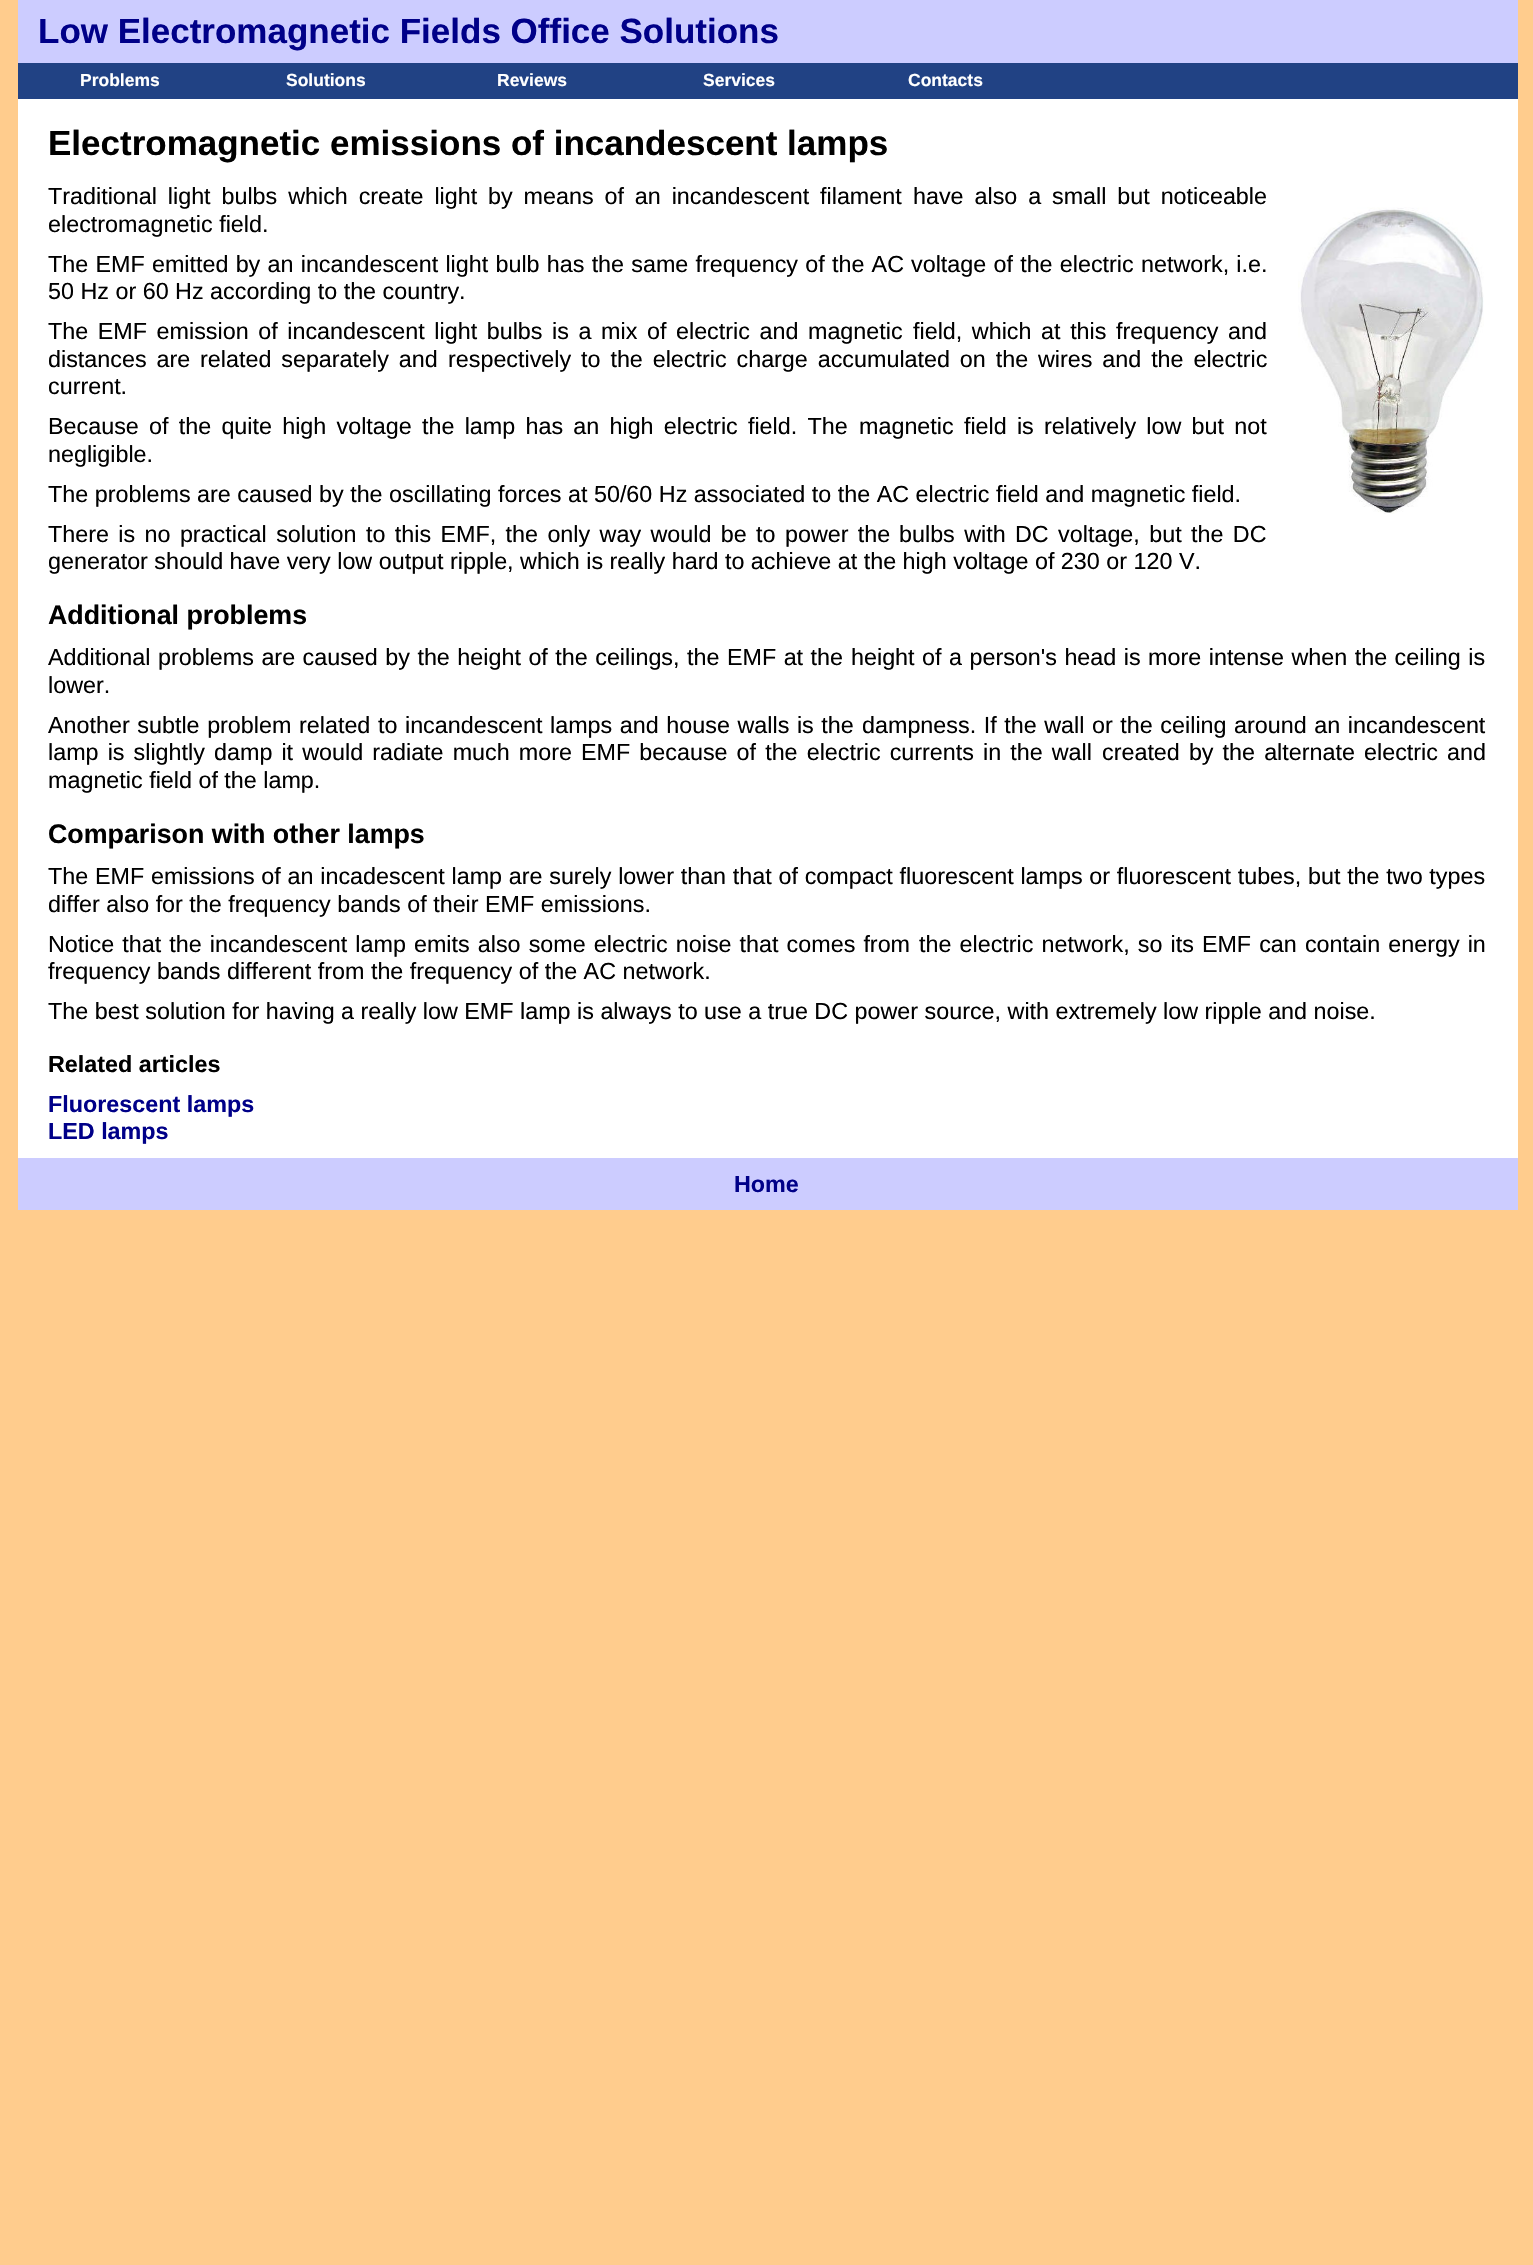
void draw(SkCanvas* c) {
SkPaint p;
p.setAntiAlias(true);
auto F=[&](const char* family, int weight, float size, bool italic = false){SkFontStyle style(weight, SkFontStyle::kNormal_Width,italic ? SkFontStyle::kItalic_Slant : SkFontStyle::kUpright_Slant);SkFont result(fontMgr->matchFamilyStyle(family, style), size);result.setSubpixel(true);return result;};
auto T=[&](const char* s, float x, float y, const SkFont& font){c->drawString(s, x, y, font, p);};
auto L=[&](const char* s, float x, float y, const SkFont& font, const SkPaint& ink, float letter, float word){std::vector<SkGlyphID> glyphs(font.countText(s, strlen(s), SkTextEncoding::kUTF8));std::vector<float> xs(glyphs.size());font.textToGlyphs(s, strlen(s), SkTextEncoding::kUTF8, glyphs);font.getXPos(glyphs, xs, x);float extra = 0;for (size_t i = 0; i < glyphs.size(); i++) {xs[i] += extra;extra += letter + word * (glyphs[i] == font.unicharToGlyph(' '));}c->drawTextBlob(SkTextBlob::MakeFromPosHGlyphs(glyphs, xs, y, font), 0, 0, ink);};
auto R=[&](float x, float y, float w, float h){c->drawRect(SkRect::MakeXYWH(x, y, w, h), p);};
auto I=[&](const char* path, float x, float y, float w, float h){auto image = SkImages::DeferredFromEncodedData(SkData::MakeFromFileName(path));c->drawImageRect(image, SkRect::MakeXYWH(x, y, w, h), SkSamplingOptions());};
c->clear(0xffffcc8d);
p.setColor(0xffffffff);
R(18,99,1500,1059);
p.setColor(0xffccccff);
R(18,0,1500,63);
auto f1 = F("Liberation Sans",700,35);
p.setColor(0xff000088);
T("Low Electromagnetic Fields Office Solutions",38,43,f1);
p.setColor(0xff214284);
R(18,63,1500,36);
auto f2 = F("Liberation Sans",700,17.5);
p.setColor(0xffffffff);
T("Problems",80,86,f2);
T("Solutions",286,86,f2);
T("Reviews",497,86,f2);
T("Services",703,86,f2);
T("Contacts",908,86,f2);
p.setColor(0xff000000);
T("Electromagnetic emissions of incandescent lamps",48,155,f1);
auto f3 = F("Liberation Sans",400,23.33);
L("Traditional light bulbs which create light by means of an incandescent filament",48,204,f3,p,0,4.4);
L("have also a small but noticeable",913,204,f3,p,0,4.4);
T("electromagnetic field.",48,232,f3);
I("1.png",1298,207,186,307);
L("The EMF emitted by an incandescent light bulb has the same frequency of the AC",48,272,f3,p,0,.75);
L("voltage of the electric network, i.e.",911,272,f3,p,0,.75);
T("50 Hz or 60 Hz according to the country.",48,299,f3);
L("The EMF emission of incandescent light bulbs is a mix of electric and magnetic",48,339,f3,p,0,3.1);
L("field, which at this frequency and",913,339,f3,p,0,3.1);
L("distances are related separately and",48,367,f3,p,0,3.4);
L("respectively to the electric charge accumulated on the wires and the electric",448,367,f3,p,0,3.4);
T("current.",48,394,f3);
L("Because of the quite high voltage the lamp has an high electric field. The",48,434,f3,p,0,3.75);
L("magnetic field is relatively low but not",859,434,f3,p,0,3.75);
T("negligible.",48,462,f3);
T("The problems are caused by the oscillating forces at 50/60 Hz associated to the AC electric field and magnetic field.",48,502,f3);
L("There is no practical solution to this EMF, the only way would be to power the",48,542,f3,p,0,2.9);
L("bulbs with DC voltage, but the DC",899,542,f3,p,0,2.9);
T("generator should have very low output ripple, which is really hard to achieve at the high voltage of 230 or 120 V.",48,569,f3);
auto f4 = F("Liberation Sans",700,26.8);
T("Additional problems",48,624,f4);
L("Additional problems are caused by the height of the ceilings, the EMF at the",48,665,f3,p,0,1);
L("height of a person's head is more intense when the ceiling is",851,665,f3,p,0,1);
T("lower.",48,693,f3);
L("Another subtle problem related to incandescent lamps and house walls is the",48,733,f3,p,0,1.1);
L("dampness. If the wall or the ceiling around an incandescent",862,733,f3,p,0,1.1);
L("lamp is slightly",48,760,f3,p,0,2.6);
L("damp it would radiate much more EMF because of the electric currents in the wall",214,760,f3,p,0,2.6);
L("created by the alternate electric and",1102,760,f3,p,0,2.6);
T("magnetic field of the lamp.",48,788,f3);
T("Comparison with other lamps",48,843,f4);
L("The EMF emissions of an incadescent lamp are surely lower than that of compact fluorescent lamps or fluorescent tubes, but the two types",48,884,f3,p,0,.25);
T("differ also for the frequency bands of their EMF emissions.",48,912,f3);
L("Notice that the incandescent lamp emits also some electric noise that comes from",48,952,f3,p,0,1.6);
L("the electric network, so its EMF can contain energy in",919,952,f3,p,0,1.6);
T("frequency bands different from the frequency of the AC network.",48,979,f3);
T("The best solution for having a really low EMF lamp is always to use a true DC power source, with extremely low ripple and noise.",48,1019,f3);
auto f5 = F("Liberation Sans",700,23.33);
T("Related articles",48,1072,f5);
p.setColor(0xff000088);
T("Fluorescent lamps",48,1112,f5);
T("LED lamps",48,1139,f5);
p.setColor(0xffccccff);
R(18,1158,1500,52);
p.setColor(0xff000088);
T("Home",734,1192,f5);
}
